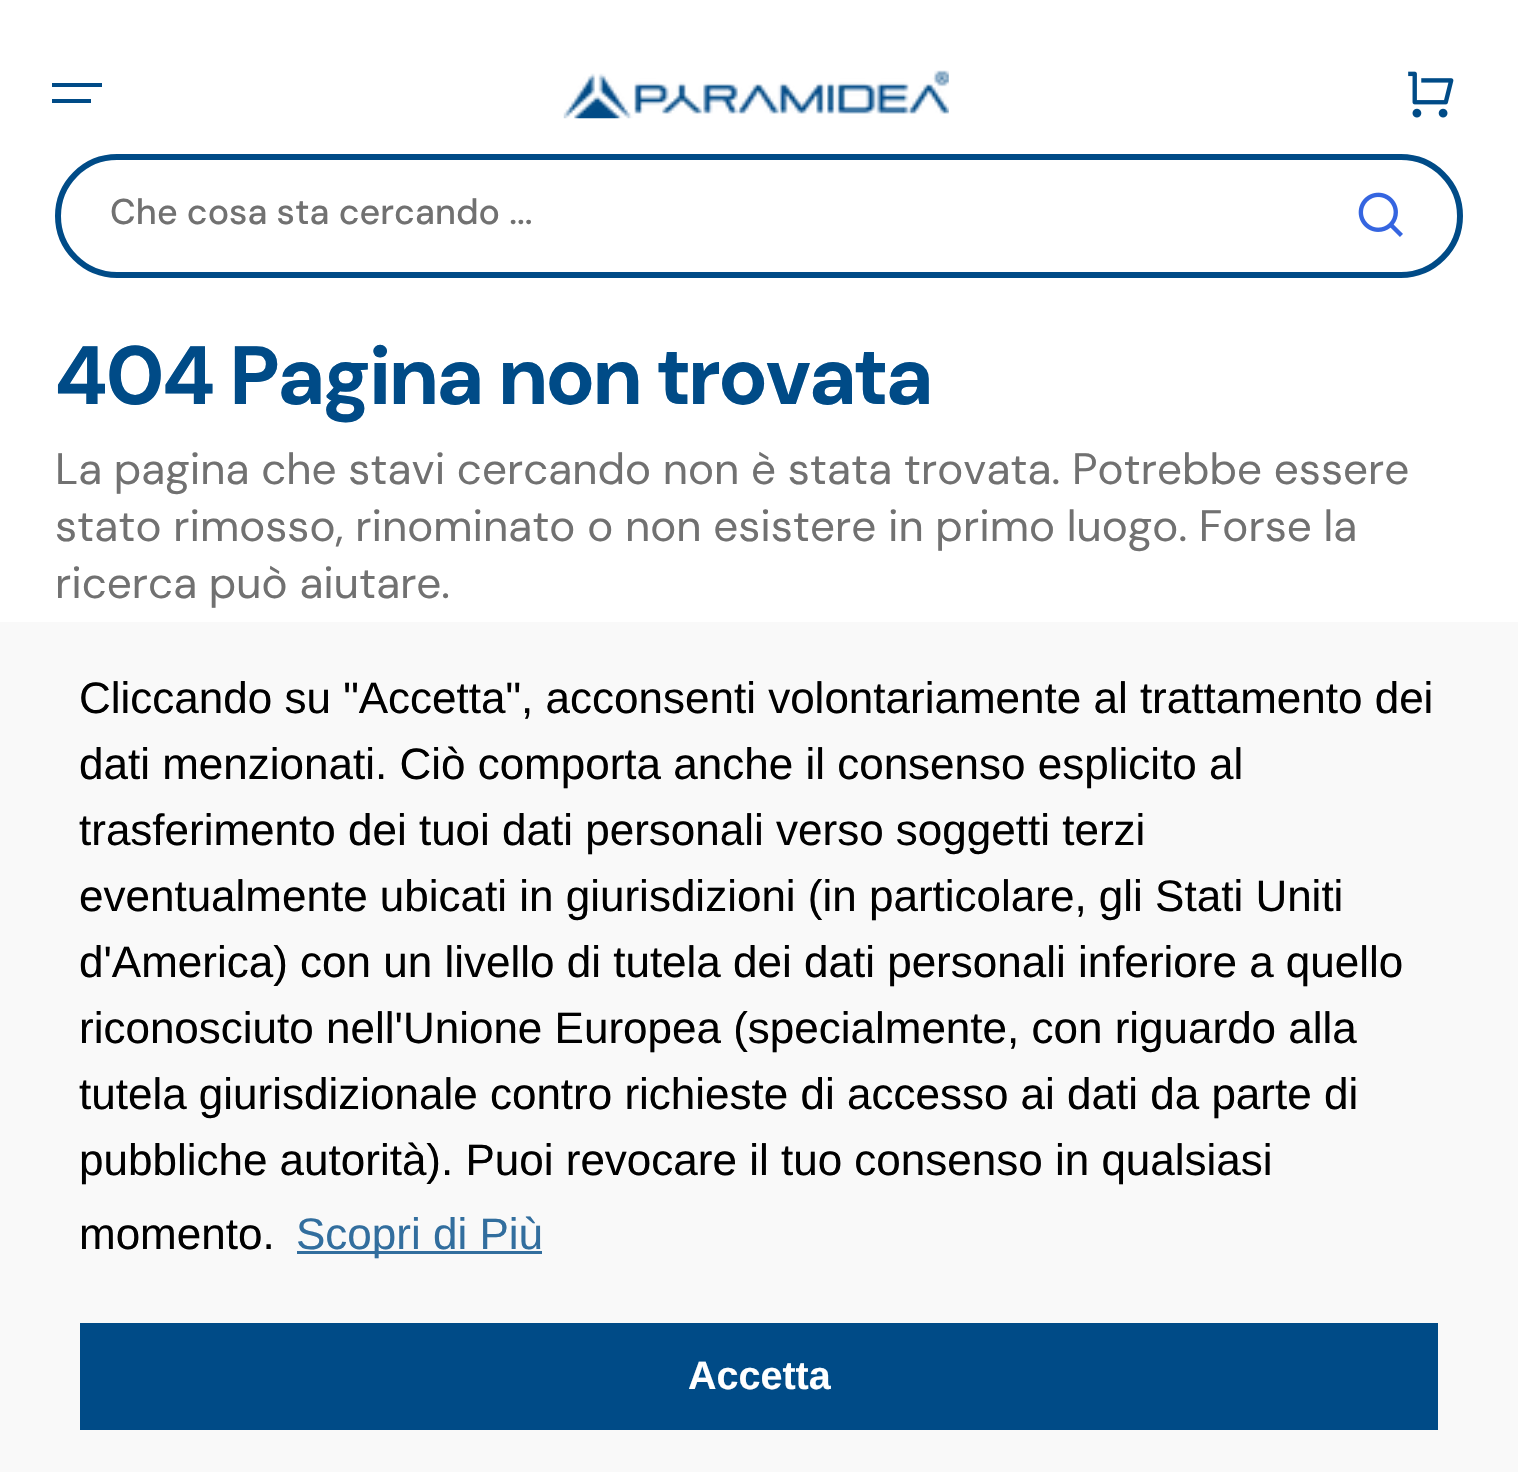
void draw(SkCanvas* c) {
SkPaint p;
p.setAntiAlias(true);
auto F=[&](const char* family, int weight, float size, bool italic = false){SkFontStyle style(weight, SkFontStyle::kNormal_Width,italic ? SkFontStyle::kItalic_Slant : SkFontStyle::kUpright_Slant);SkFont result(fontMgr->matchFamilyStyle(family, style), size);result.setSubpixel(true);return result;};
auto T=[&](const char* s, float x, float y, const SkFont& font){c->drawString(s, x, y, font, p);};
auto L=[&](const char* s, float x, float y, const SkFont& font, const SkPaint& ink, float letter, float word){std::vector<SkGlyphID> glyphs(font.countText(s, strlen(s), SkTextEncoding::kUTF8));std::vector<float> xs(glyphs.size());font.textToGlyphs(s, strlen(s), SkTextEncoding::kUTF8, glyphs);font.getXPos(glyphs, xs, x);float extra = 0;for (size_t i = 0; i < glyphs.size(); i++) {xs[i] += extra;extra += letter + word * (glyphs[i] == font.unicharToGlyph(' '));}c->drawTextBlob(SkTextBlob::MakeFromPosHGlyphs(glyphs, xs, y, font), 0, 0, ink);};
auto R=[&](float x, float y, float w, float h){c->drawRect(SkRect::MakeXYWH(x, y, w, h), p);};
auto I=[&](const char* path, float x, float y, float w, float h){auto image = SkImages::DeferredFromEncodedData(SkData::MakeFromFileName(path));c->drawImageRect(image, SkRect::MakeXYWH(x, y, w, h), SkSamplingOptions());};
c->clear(0xffffffff);
p.setColor(0xff004b87);
R(52,83,50,4);
R(52,99,39,4);
I("1.png",563,70,386,49);
I("2.png",1408,71,46,47);
p.setStroke(true);
p.setStrokeWidth(6);
c->drawRoundRect(SkRect::MakeXYWH(58,157,1402,118),59,59,p);
auto f1 = F("DM Sans",500,35.75);
p.setStroke(false);
p.setColor(0xff717171);
T("Che cosa sta cercando ...",110,224,f1);
I("3.png",1358,192,45,45);
auto f2 = F("DM Sans",700,82.5);
p.setColor(0xff004b87);
L("404 Pagina non trovata",55,404,f2,p,-1.65,0);
auto f3 = F("DM Sans",400,44);
p.setColor(0xff717171);
T("La pagina che stavi cercando non è stata trovata. Potrebbe essere",55,484,f3);
T("stato rimosso, rinominato o non esistere in primo luogo. Forse la",55,541,f3);
T("ricerca può aiutare.",55,598,f3);
p.setColor(0xfff9f9f9);
R(0,622,1518,850);
auto f4 = F("Liberation Sans",400,44);
p.setColor(0xff000000);
T("Cliccando su \"Accetta\", acconsenti volontariamente al trattamento dei",79,713,f4);
T("dati menzionati. Ciò comporta anche il consenso esplicito al",79,779,f4);
T("trasferimento dei tuoi dati personali verso soggetti terzi",79,845,f4);
T("eventualmente ubicati in giurisdizioni (in particolare, gli Stati Uniti",79,911,f4);
T("d'America) con un livello di tutela dei dati personali inferiore a quello",79,977,f4);
T("riconosciuto nell'Unione Europea (specialmente, con riguardo alla",79,1043,f4);
T("tutela giurisdizionale contro richieste di accesso ai dati da parte di",79,1109,f4);
T("pubbliche autorità). Puoi revocare il tuo consenso in qualsiasi",79,1175,f4);
T("momento.",79,1249,f4);
p.setColor(0xff326e9e);
R(297,1251,245,3);
T("Scopri di Più",296,1249,f4);
p.setColor(0xff004b87);
R(80,1323,1358,107);
auto f5 = F("Liberation Sans",700,39.5);
p.setColor(0xffffffff);
T("Accetta",688,1389,f5);
}
